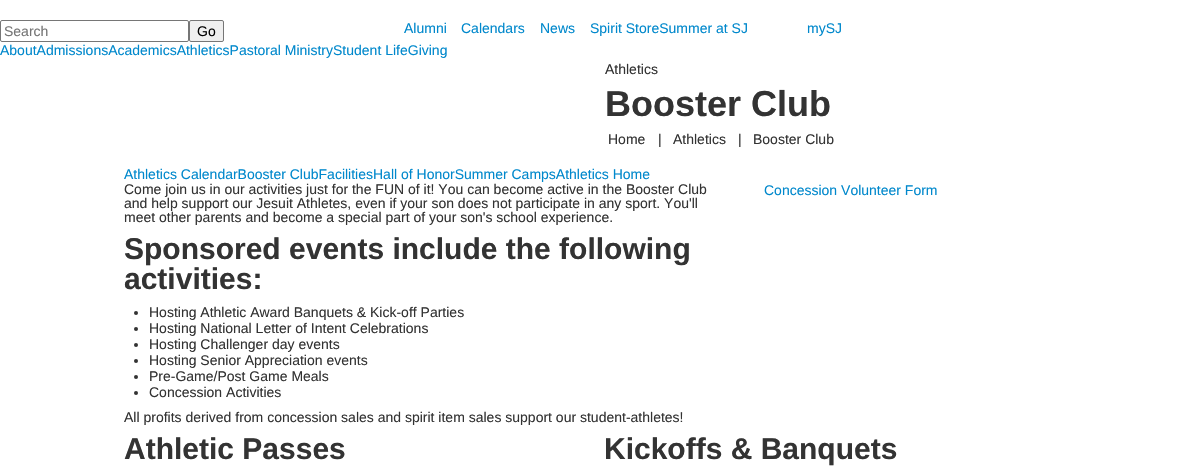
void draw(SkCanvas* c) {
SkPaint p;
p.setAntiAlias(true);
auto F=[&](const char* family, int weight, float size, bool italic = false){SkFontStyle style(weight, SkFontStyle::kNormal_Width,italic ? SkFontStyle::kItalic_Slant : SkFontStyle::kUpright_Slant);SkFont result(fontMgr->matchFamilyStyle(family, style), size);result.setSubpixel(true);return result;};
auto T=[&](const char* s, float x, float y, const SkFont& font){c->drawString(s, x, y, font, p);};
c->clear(0xffffffff);
p.setStroke(true);
p.setStrokeWidth(1);
p.setColor(0xff767676);
c->drawRoundRect(SkRect::MakeXYWH(.5,20.5,188,21),1.5,1.5,p);
auto f1 = F("Liberation Sans",400,14);
p.setStroke(false);
p.setColor(0xff757575);
T("Search",4,36,f1);
p.setColor(0xffefefef);
c->drawRoundRect(SkRect::MakeXYWH(189.5,20.5,34,21),1.5,1.5,p);
p.setStroke(true);
p.setColor(0xff767676);
c->drawRoundRect(SkRect::MakeXYWH(189.5,20.5,34,21),1.5,1.5,p);
p.setStroke(false);
p.setColor(0xff000000);
T("Go",197,36,f1);
p.setColor(0xff0088cc);
T("Alumni",404,33,f1);
T("Calendars",461,33,f1);
T("News",540,33,f1);
T("Spirit StoreSummer at SJ",590,33,f1);
T("mySJ",807,33,f1);
T("AboutAdmissionsAcademicsAthleticsPastoral MinistryStudent LifeGiving",0,55,f1);
p.setColor(0xff333333);
T("Athletics",605,74,f1);
auto f2 = F("Liberation Sans",700,36);
T("Booster Club",605,116,f2);
T("Home",608,144,f1);
T("|",658,144,f1);
T("Athletics",673,144,f1);
T("|",738,144,f1);
T("Booster Club",753,144,f1);
p.setColor(0xff0088cc);
T("Athletics CalendarBooster ClubFacilitiesHall of HonorSummer CampsAthletics Home",124,179,f1);
p.setColor(0xff333333);
T("Come join us in our activities just for the FUN of it! You can become active in the Booster Club",124,194,f1);
T("and help support our Jesuit Athletes, even if your son does not participate in any sport. You'll",124,208,f1);
T("meet other parents and become a special part of your son's school experience.",124,222,f1);
auto f3 = F("Liberation Sans",700,30);
T("Sponsored events include the following",124,259,f3);
T("activities:",124,289,f3);
c->drawCircle(136,313,2,p);
T("Hosting Athletic Award Banquets & Kick-off Parties",149,317,f1);
c->drawCircle(136,329,2,p);
T("Hosting National Letter of Intent Celebrations",149,333,f1);
c->drawCircle(136,345,2,p);
T("Hosting Challenger day events",149,349,f1);
c->drawCircle(136,361,2,p);
T("Hosting Senior Appreciation events",149,365,f1);
c->drawCircle(136,377,2,p);
T("Pre-Game/Post Game Meals",149,381,f1);
c->drawCircle(136,393,2,p);
T("Concession Activities",149,397,f1);
p.setColor(0xff0088cc);
T("Concession Volunteer Form",764,195,f1);
p.setColor(0xff333333);
T("All profits derived from concession sales and spirit item sales support our student-athletes!",124,422,f1);
T("Athletic Passes",124,459,f3);
T("Kickoffs & Banquets",604,459,f3);
}
